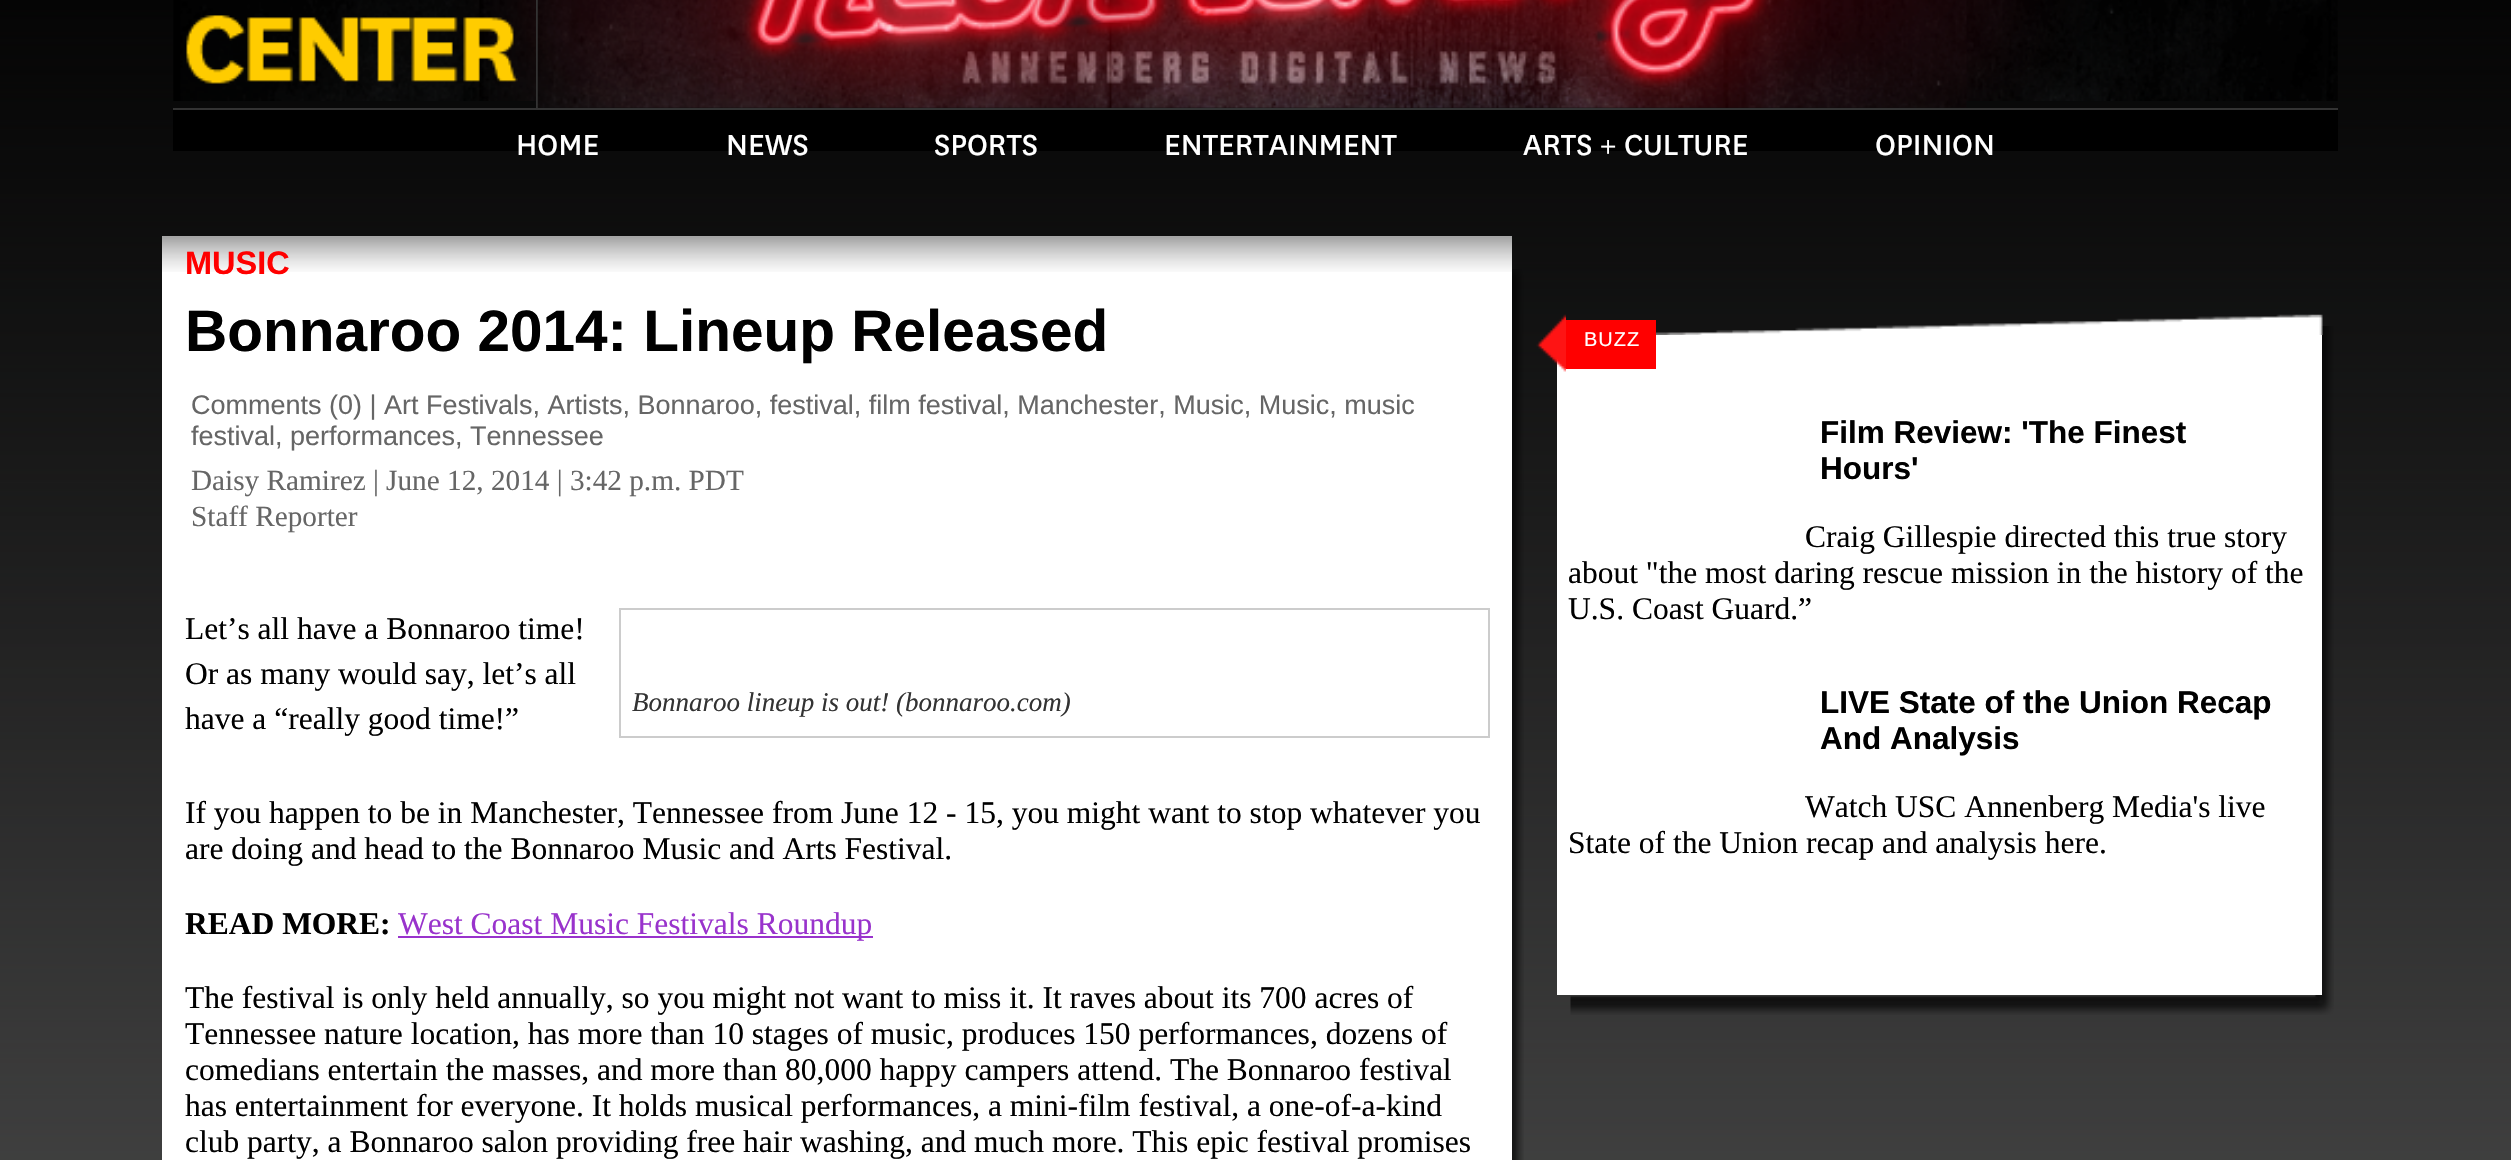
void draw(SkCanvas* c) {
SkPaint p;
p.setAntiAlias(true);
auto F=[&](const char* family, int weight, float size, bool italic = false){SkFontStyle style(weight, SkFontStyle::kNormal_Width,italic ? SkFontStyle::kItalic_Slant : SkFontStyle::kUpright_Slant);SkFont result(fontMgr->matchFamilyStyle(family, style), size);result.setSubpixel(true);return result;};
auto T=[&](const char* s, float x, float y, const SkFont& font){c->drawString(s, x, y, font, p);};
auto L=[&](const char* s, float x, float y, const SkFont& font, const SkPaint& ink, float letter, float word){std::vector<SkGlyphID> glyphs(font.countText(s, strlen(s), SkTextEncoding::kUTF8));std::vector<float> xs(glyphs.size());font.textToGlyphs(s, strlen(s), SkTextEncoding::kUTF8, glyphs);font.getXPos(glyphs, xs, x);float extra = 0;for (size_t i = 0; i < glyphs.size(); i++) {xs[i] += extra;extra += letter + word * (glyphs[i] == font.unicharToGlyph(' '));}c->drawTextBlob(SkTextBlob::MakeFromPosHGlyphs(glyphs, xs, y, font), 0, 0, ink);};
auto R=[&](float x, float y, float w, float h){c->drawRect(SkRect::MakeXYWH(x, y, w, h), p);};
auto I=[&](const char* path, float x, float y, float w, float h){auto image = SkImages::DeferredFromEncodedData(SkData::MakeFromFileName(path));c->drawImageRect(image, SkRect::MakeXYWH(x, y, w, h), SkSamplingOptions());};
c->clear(0xffffffff);
I("1.png",0,0,2511,1160);
I("2.png",173,0,2165,101);
p.setColor(0xff333333);
R(536,0,2,108);
I("3.png",186,15,332,69);
I("4.png",537,0,1430,108);
p.setColor(0xff000000);
R(173,110,2165,41);
p.setColor(0xff333333);
R(173,108,2165,2);
auto f1 = F("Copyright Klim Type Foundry",500,33.75);
p.setColor(0xffffffff);
T("HOME",516,155,f1);
T("NEWS",726,155,f1);
T("SPORTS",934,155,f1);
T("ENTERTAINMENT",1164,155,f1);
T("ARTS + CULTURE",1523,155,f1);
T("OPINION",1875,155,f1);
I("5.png",1512,269,12,891);
R(162,272,1350,888);
I("6.png",162,236,1350,36);
auto f2 = F("Liberation Sans",700,32.5);
p.setColor(0xffff0000);
T("MUSIC",185,274,f2);
auto f3 = F("Liberation Sans",700,58.5);
p.setColor(0xff000000);
T("Bonnaroo 2014: Lineup Released",185,351,f3);
auto f4 = F("Liberation Sans",400,27);
p.setColor(0xff666666);
T("Comments (0) | Art Festivals, Artists, Bonnaroo, festival, film festival, Manchester, Music, Music, music",191,414,f4);
T("festival, performances, Tennessee",191,445,f4);
auto f5 = F("Liberation Serif",400,29.25);
T("Daisy Ramirez | June 12, 2014 | 3:42 p.m. PDT",191,490,f5);
T("Staff Reporter",191,526,f5);
auto f6 = F("Liberation Serif",400,31.5);
p.setColor(0xff000000);
T("Let’s all have a Bonnaroo time!",185,639,f6);
T("Or as many would say, let’s all",185,684,f6);
p.setStroke(true);
p.setStrokeWidth(2);
p.setColor(0xffcccccc);
c->drawRect(SkRect::MakeXYWH(620,609,869,128),p);
auto f7 = F("Liberation Serif",400,27,true);
p.setStroke(false);
p.setColor(0xff333333);
T("Bonnaroo lineup is out! (bonnaroo.com)",632,711,f7);
p.setColor(0xff000000);
T("have a “really good time!”",185,729,f6);
T("If you happen to be in Manchester, Tennessee from June 12 - 15, you might want to stop whatever you",185,823,f6);
T("are doing and head to the Bonnaroo Music and Arts Festival.",185,859,f6);
auto f8 = F("Liberation Serif",700,31.5);
T("READ MORE:",185,934,f8);
p.setColor(0xff9933cc);
R(398,936,475,2);
T("West Coast Music Festivals Roundup",398,934,f6);
p.setColor(0xff000000);
T("The festival is only held annually, so you might not want to miss it. It raves about its 700 acres of",185,1008,f6);
T("Tennessee nature location, has more than 10 stages of music, produces 150 performances, dozens of",185,1044,f6);
T("comedians entertain the masses, and more than 80,000 happy campers attend. The Bonnaroo festival",185,1080,f6);
T("has entertainment for everyone. It holds musical performances, a mini-film festival, a one-of-a-kind",185,1116,f6);
T("club party, a Bonnaroo salon providing free hair washing, and much more. This epic festival promises",185,1152,f6);
I("7.png",1570,326,764,689);
I("8.png",1656,314,667,21);
p.setColor(0xffffffff);
R(1557,335,765,660);
I("9.png",1536,314,30,58);
p.setColor(0xffff0000);
R(1566,320,90,49);
auto f9 = F("Liberation Sans",400,20);
p.setColor(0xffffffff);
L("BUZZ",1584,346,f9,p,1,0);
auto f10 = F("Liberation Sans",700,31.5);
p.setColor(0xff000000);
T("Film Review: 'The Finest",1820,443,f10);
T("Hours'",1820,479,f10);
T("Craig Gillespie directed this true story",1805,547,f6);
T("about \"the most daring rescue mission in the history of the",1568,583,f6);
T("U.S. Coast Guard.”",1568,619,f6);
T("LIVE State of the Union Recap",1820,713,f10);
T("And Analysis",1820,749,f10);
T("Watch USC Annenberg Media's live",1805,817,f6);
T("State of the Union recap and analysis here.",1568,853,f6);
}
